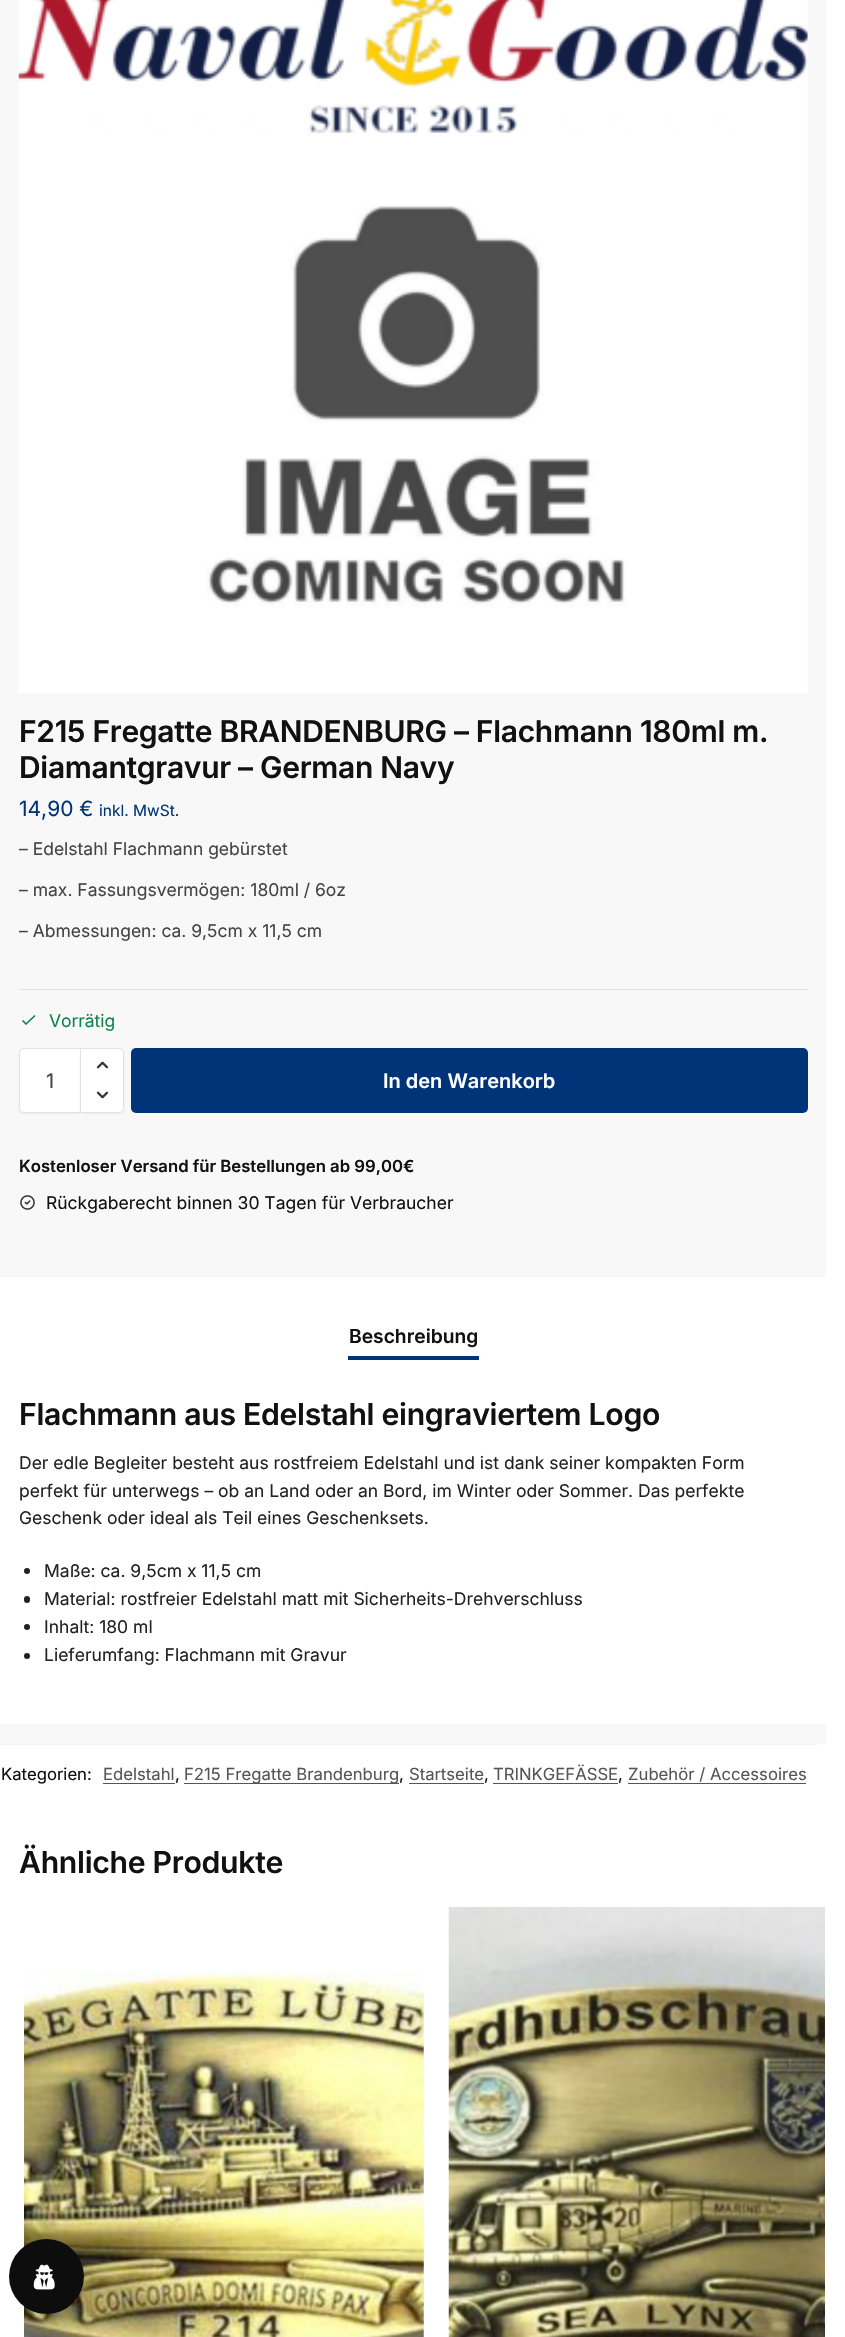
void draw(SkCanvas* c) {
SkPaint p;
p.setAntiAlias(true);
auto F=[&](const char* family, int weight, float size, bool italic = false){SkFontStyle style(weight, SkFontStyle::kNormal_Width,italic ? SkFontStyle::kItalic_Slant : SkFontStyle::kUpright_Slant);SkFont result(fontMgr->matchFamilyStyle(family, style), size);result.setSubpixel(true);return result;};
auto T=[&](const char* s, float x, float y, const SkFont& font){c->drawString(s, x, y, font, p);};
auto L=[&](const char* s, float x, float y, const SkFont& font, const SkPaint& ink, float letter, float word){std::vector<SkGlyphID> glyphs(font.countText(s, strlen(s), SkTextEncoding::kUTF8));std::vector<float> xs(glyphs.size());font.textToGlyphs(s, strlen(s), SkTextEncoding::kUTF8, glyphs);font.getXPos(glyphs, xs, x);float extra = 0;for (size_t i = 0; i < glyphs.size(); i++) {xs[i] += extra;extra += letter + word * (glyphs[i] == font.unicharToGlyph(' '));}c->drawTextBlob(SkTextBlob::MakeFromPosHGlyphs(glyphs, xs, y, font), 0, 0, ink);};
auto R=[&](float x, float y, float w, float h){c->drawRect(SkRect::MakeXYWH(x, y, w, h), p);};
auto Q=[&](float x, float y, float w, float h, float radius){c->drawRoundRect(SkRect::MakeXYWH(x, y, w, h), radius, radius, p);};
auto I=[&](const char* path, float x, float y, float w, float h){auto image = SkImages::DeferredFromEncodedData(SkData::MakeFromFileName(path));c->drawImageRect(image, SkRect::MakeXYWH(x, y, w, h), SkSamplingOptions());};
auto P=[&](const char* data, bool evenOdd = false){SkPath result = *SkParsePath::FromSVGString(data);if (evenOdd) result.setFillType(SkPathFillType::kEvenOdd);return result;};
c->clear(0xffffffff);
p.setColor(0xfff8f8f8);
R(0,0,826,1744);
I("1.png",18,0,790,693);
auto f1 = F("Inter",600,30);
p.setColor(0xff111111);
L("F215 Fregatte BRANDENBURG – Flachmann 180ml m.",19,742,f1,p,-.3,0);
L("Diamantgravur – German Navy",19,778,f1,p,-.3,0);
auto f2 = F("Inter",400,21);
p.setColor(0xff003378);
T("14,90 €",19,816,f2);
auto f3 = F("Inter",400,15.5);
T("inkl. MwSt.",99,816,f3);
auto f4 = F("Inter",400,17.5);
p.setColor(0xff444444);
T("– Edelstahl Flachmann gebürstet",19,855,f4);
T("– max. Fassungsvermögen: 180ml / 6oz",19,896,f4);
T("– Abmessungen: ca. 9,5cm x 11,5 cm",19,937,f4);
p.setColor(0xffe2e2e2);
R(19,989,789,1);
p.setStroke(true);
p.setStrokeWidth(1.7);
p.setStrokeCap(SkPaint::kRound_Cap);
p.setStrokeJoin(SkPaint::kRound_Join);
p.setColor(0xff0f834d);
c->drawPath(P("M23 1021l3 3l8.5-8"),p);
p.setStroke(false);
T("Vorrätig",49,1027,f4);
p.setColor(0x0d000000);
p.setMaskFilter(SkMaskFilter::MakeBlur(kNormal_SkBlurStyle, 1));
c->drawRoundRect(SkRect::MakeXYWH(19,1049,62,65),5,5,p);
p.setMaskFilter(nullptr);
p.setColor(0xffffffff);
c->drawPath(P("M24 1048.5h56.5v64h-56.5c-2.5 0-4.5-2-4.5-4.5v-55c0-2.5 2-4.5 4.5-4.5z"),p);
p.setStroke(true);
p.setStrokeWidth(1);
p.setStrokeCap(SkPaint::kButt_Cap);
p.setStrokeJoin(SkPaint::kMiter_Join);
p.setColor(0xffe2e2e2);
c->drawPath(P("M24 1048.5h56.5v64h-56.5c-2.5 0-4.5-2-4.5-4.5v-55c0-2.5 2-4.5 4.5-4.5z"),p);
auto f5 = F("Inter",400,20);
p.setStroke(false);
p.setColor(0xff444444);
T("1",46,1088,f5);
p.setColor(0x0d000000);
p.setMaskFilter(SkMaskFilter::MakeBlur(kNormal_SkBlurStyle, 1));
c->drawRoundRect(SkRect::MakeXYWH(80,1049,44,65),5,5,p);
p.setMaskFilter(nullptr);
p.setColor(0xffffffff);
c->drawPath(P("M80.5 1048.5h38.5c2.5 0 4.5 2 4.5 4.5v55c0 2.5-2 4.5-4.5 4.5h-38.5z"),p);
p.setStroke(true);
p.setColor(0xffe2e2e2);
c->drawPath(P("M80.5 1048.5h38.5c2.5 0 4.5 2 4.5 4.5v55c0 2.5-2 4.5-4.5 4.5h-38.5z"),p);
I("2.png",96,1061,13,8);
I("3.png",96,1091,13,8);
p.setStroke(false);
p.setColor(0xff003378);
Q(131,1048,677,65,5);
auto f6 = F("Inter",600,20);
p.setColor(0xffffffff);
T("In den Warenkorb",383,1088,f6);
auto f7 = F("Inter",600,16.7);
p.setColor(0xff111111);
T("Kostenloser Versand für Bestellungen ab 99,00€",19,1172,f7);
I("4.png",20,1195,15,15);
T("Rückgaberecht binnen 30 Tagen für Verbraucher",46,1209,f4);
p.setColor(0xffffffff);
R(0,1277,826,447);
p.setColor(0xfff5f5f5);
R(0,1276,826,1);
auto f8 = F("Inter",600,19.25);
p.setColor(0xff111111);
T("Beschreibung",349,1343,f8);
p.setColor(0xff003378);
R(348,1356,131,4);
auto f9 = F("Inter",600,30.2);
p.setColor(0xff111111);
L("Flachmann aus Edelstahl eingraviertem Logo",19,1425,f9,p,-.3,0);
p.setColor(0xff222222);
T("Der edle Begleiter besteht aus rostfreiem Edelstahl und ist dank seiner kompakten Form",19,1469,f4);
T("perfekt für unterwegs – ob an Land oder an Bord, im Winter oder Sommer. Das perfekte",19,1497,f4);
T("Geschenk oder ideal als Teil eines Geschenksets.",19,1524,f4);
c->drawCircle(27,1571,3,p);
T("Maße: ca. 9,5cm x 11,5 cm",44,1577,f4);
Q(24,1596,6,7,3);
T("Material: rostfreier Edelstahl matt mit Sicherheits-Drehverschluss",44,1605,f4);
c->drawCircle(27,1627,3,p);
T("Inhalt: 180 ml",44,1633,f4);
c->drawCircle(27,1656,3,p);
T("Lieferumfang: Flachmann mit Gravur",44,1661,f4);
p.setColor(0xfff2f2f2);
R(0,1744,818,1);
auto f10 = F("Inter",400,16.7);
p.setColor(0xff111111);
T("Kategorien:",1,1780,f10);
p.setColor(0xff555555);
T("Edelstahl",103,1780,f10);
R(103,1783,72,1);
p.setColor(0xff111111);
T(",",175,1780,f10);
p.setColor(0xff555555);
R(184,1783,215,1);
T("F215 Fregatte Brandenburg",184,1780,f10);
p.setColor(0xff111111);
T(",",399,1780,f10);
p.setColor(0xff555555);
T("Startseite",409,1780,f10);
R(409,1783,75,1);
p.setColor(0xff111111);
T(",",484,1780,f10);
p.setColor(0xff555555);
T("TRINKGEFÄSSE",493,1780,f10);
R(493,1783,125,1);
p.setColor(0xff111111);
T(",",618,1780,f10);
p.setColor(0xff555555);
T("Zubehör / Accessoires",628,1780,f10);
R(628,1783,178,1);
p.setColor(0xff111111);
L("Ähnliche Produkte",19,1873,f9,p,-.3,0);
I("5.png",24,1971,400,366);
I("6.png",448,1907,377,430);
p.setColor(0xff0d0d0d);
c->drawCircle(46.5,2276.5,37.5,p);
I("7.png",33,2264,22,26);
}
